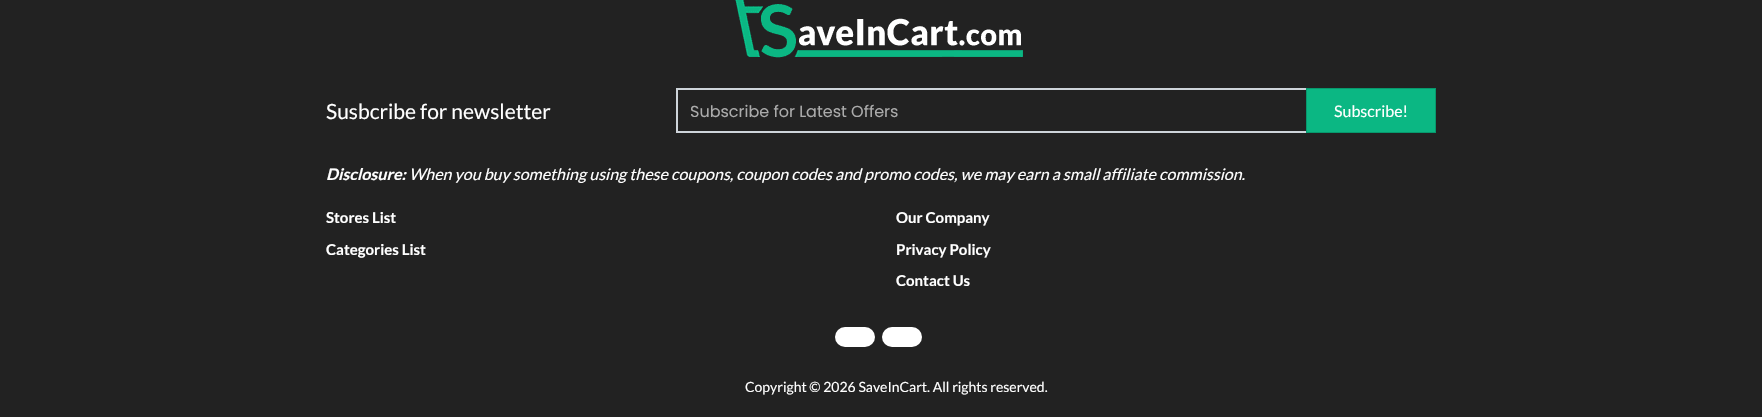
void draw(SkCanvas* c) {
SkPaint p;
p.setAntiAlias(true);
auto F=[&](const char* family, int weight, float size, bool italic = false){SkFontStyle style(weight, SkFontStyle::kNormal_Width,italic ? SkFontStyle::kItalic_Slant : SkFontStyle::kUpright_Slant);SkFont result(fontMgr->matchFamilyStyle(family, style), size);result.setSubpixel(true);return result;};
auto T=[&](const char* s, float x, float y, const SkFont& font){c->drawString(s, x, y, font, p);};
auto R=[&](float x, float y, float w, float h){c->drawRect(SkRect::MakeXYWH(x, y, w, h), p);};
auto Q=[&](float x, float y, float w, float h, float radius){c->drawRoundRect(SkRect::MakeXYWH(x, y, w, h), radius, radius, p);};
auto I=[&](const char* path, float x, float y, float w, float h){auto image = SkImages::DeferredFromEncodedData(SkData::MakeFromFileName(path));c->drawImageRect(image, SkRect::MakeXYWH(x, y, w, h), SkSamplingOptions());};
c->clear(0xff222222);
I("1.png",735,0,288,58);
auto f1 = F("Lato",400,21);
p.setColor(0xffffffff);
T("Susbcribe for newsletter",326,119,f1);
p.setColor(0xffced4da);
R(676,88,630,2);
R(676,131,630,2);
R(676,88,2,45);
auto f2 = F("Poppins",400,16);
p.setColor(0xffababab);
T("Subscribe for Latest Offers",690,117,f2);
p.setColor(0xff0bb783);
c->drawRect(SkRect::MakeXYWH(1306.5,88.5,129,44),p);
p.setStroke(true);
p.setStrokeWidth(1);
p.setColor(0xff08986d);
c->drawRect(SkRect::MakeXYWH(1306.5,88.5,129,44),p);
auto f3 = F("Lato",400,16);
p.setStroke(false);
p.setColor(0xffffffff);
T("Subscribe!",1334,117,f3);
auto f4 = F("Lato",700,16,true);
T("Disclosure:",326,180,f4);
auto f5 = F("Lato",400,16,true);
T("When you buy something using these coupons, coupon codes and promo codes, we may earn a small affiliate commission.",409,180,f5);
auto f6 = F("Lato",700,15);
T("Stores List",326,223,f6);
T("Categories List",326,255,f6);
T("Our Company",896,223,f6);
T("Privacy Policy",896,255,f6);
T("Contact Us",896,286,f6);
Q(835,327,40,20,10);
Q(882,327,40,20,10);
auto f7 = F("Lato",400,14);
T("Copyright © 2026 SaveInCart. All rights reserved.",745,392,f7);
}
